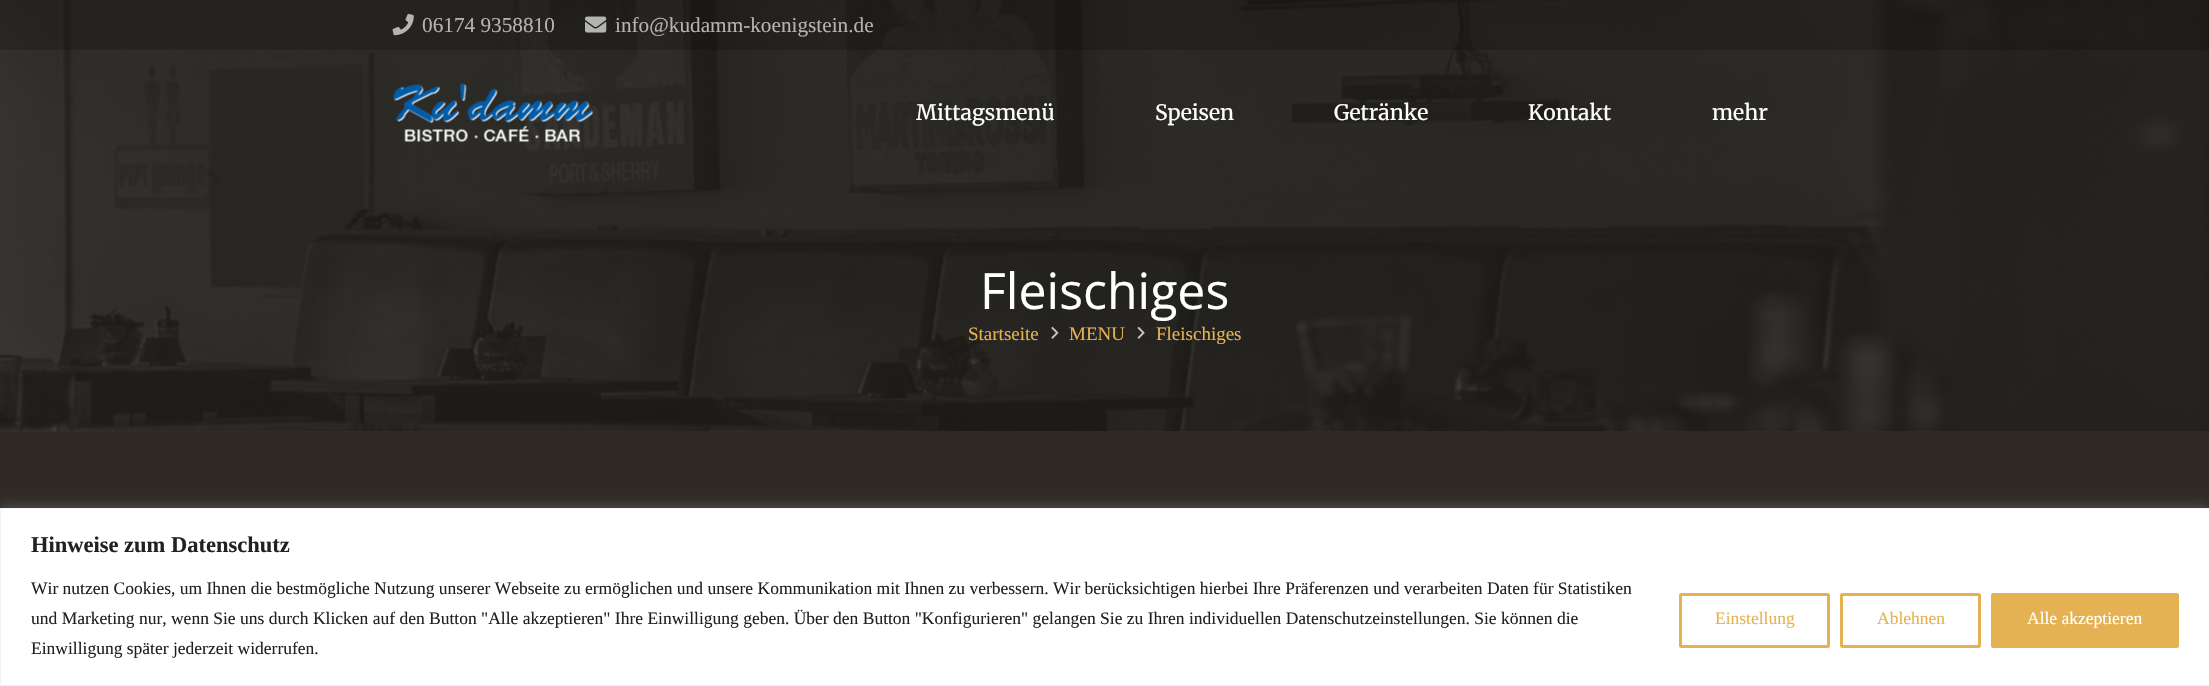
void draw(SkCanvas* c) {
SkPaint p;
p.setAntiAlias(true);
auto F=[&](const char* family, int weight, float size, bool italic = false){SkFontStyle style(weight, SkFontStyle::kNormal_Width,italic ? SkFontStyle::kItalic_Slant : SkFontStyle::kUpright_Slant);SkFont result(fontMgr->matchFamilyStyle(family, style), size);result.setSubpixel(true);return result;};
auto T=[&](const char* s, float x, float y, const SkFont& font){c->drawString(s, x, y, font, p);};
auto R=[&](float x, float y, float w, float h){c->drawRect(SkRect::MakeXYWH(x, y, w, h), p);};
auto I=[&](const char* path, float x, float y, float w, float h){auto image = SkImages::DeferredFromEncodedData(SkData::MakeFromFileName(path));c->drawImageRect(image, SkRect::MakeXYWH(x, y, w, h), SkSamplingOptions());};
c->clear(0xff2e2925);
p.setColor(0xff211e1b);
R(0,0,2209,431);
I("4.png",0,0,2208,432);
p.setColor(0x33000000);
R(0,0,2209,50);
I("1.png",392,13,22,23);
auto f1 = F("Liberation Serif",400,21.25);
p.setColor(0xffb5b4b3);
T("06174 9358810",422,32,f1);
I("2.png",585,16,22,17);
T("info@kudamm-koenigstein.de",615,32,f1);
I("3.png",393,83,200,59);
auto f2 = F("Merriweather",400,21.25);
p.setColor(0xffffffff);
T("Mittagsmenü",916,120,f2);
T("Speisen",1155,120,f2);
T("Getränke",1334,120,f2);
T("Kontakt",1528,120,f2);
T("mehr",1712,120,f2);
auto f3 = F("Open Sans",400,50);
T("Fleischiges",980,309,f3);
auto f4 = F("Liberation Serif",400,19);
p.setColor(0xffe5b253);
T("Startseite",968,340,f4);
I("5.png",1051,326,8,13);
T("MENU",1069,340,f4);
I("6.png",1137,326,8,13);
T("Fleischiges",1156,340,f4);
p.setColor(0x4dacabab);
p.setMaskFilter(SkMaskFilter::MakeBlur(kNormal_SkBlurStyle, 6));
c->drawRect(SkRect::MakeXYWH(0,506,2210,179),p);
p.setMaskFilter(nullptr);
p.setColor(0xffffffff);
c->drawRect(SkRect::MakeXYWH(.5,508.5,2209,177),p);
p.setStroke(true);
p.setStrokeWidth(1);
p.setColor(0xfff4f4f4);
c->drawRect(SkRect::MakeXYWH(.5,508.5,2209,177),p);
auto f5 = F("Liberation Serif",700,22.5);
p.setStroke(false);
p.setColor(0xff212121);
T("Hinweise zum Datenschutz",31,552,f5);
auto f6 = F("Liberation Serif",400,17.5);
T("Wir nutzen Cookies, um Ihnen die bestmögliche Nutzung unserer Webseite zu ermöglichen und unsere Kommunikation mit Ihnen zu verbessern. Wir berücksichtigen hierbei Ihre Präferenzen und verarbeiten Daten für Statistiken",31,594,f6);
T("und Marketing nur, wenn Sie uns durch Klicken auf den Button \"Alle akzeptieren\" Ihre Einwilligung geben. Über den Button \"Konfigurieren\" gelangen Sie zu Ihren individuellen Datenschutzeinstellungen. Sie können die",31,624,f6);
T("Einwilligung später jederzeit widerrufen.",31,654,f6);
p.setStroke(true);
p.setStrokeWidth(3);
p.setColor(0xffe5b253);
c->drawRoundRect(SkRect::MakeXYWH(1680.5,594.5,148,52),1,1,p);
p.setStroke(false);
T("Einstellung",1715,624,f6);
p.setStroke(true);
c->drawRoundRect(SkRect::MakeXYWH(1841.5,594.5,138,52),1,1,p);
p.setStroke(false);
T("Ablehnen",1877,624,f6);
c->drawRoundRect(SkRect::MakeXYWH(1992.5,594.5,185,52),1,1,p);
p.setStroke(true);
c->drawRoundRect(SkRect::MakeXYWH(1992.5,594.5,185,52),1,1,p);
p.setStroke(false);
p.setColor(0xffffffff);
T("Alle akzeptieren",2027,624,f6);
}
